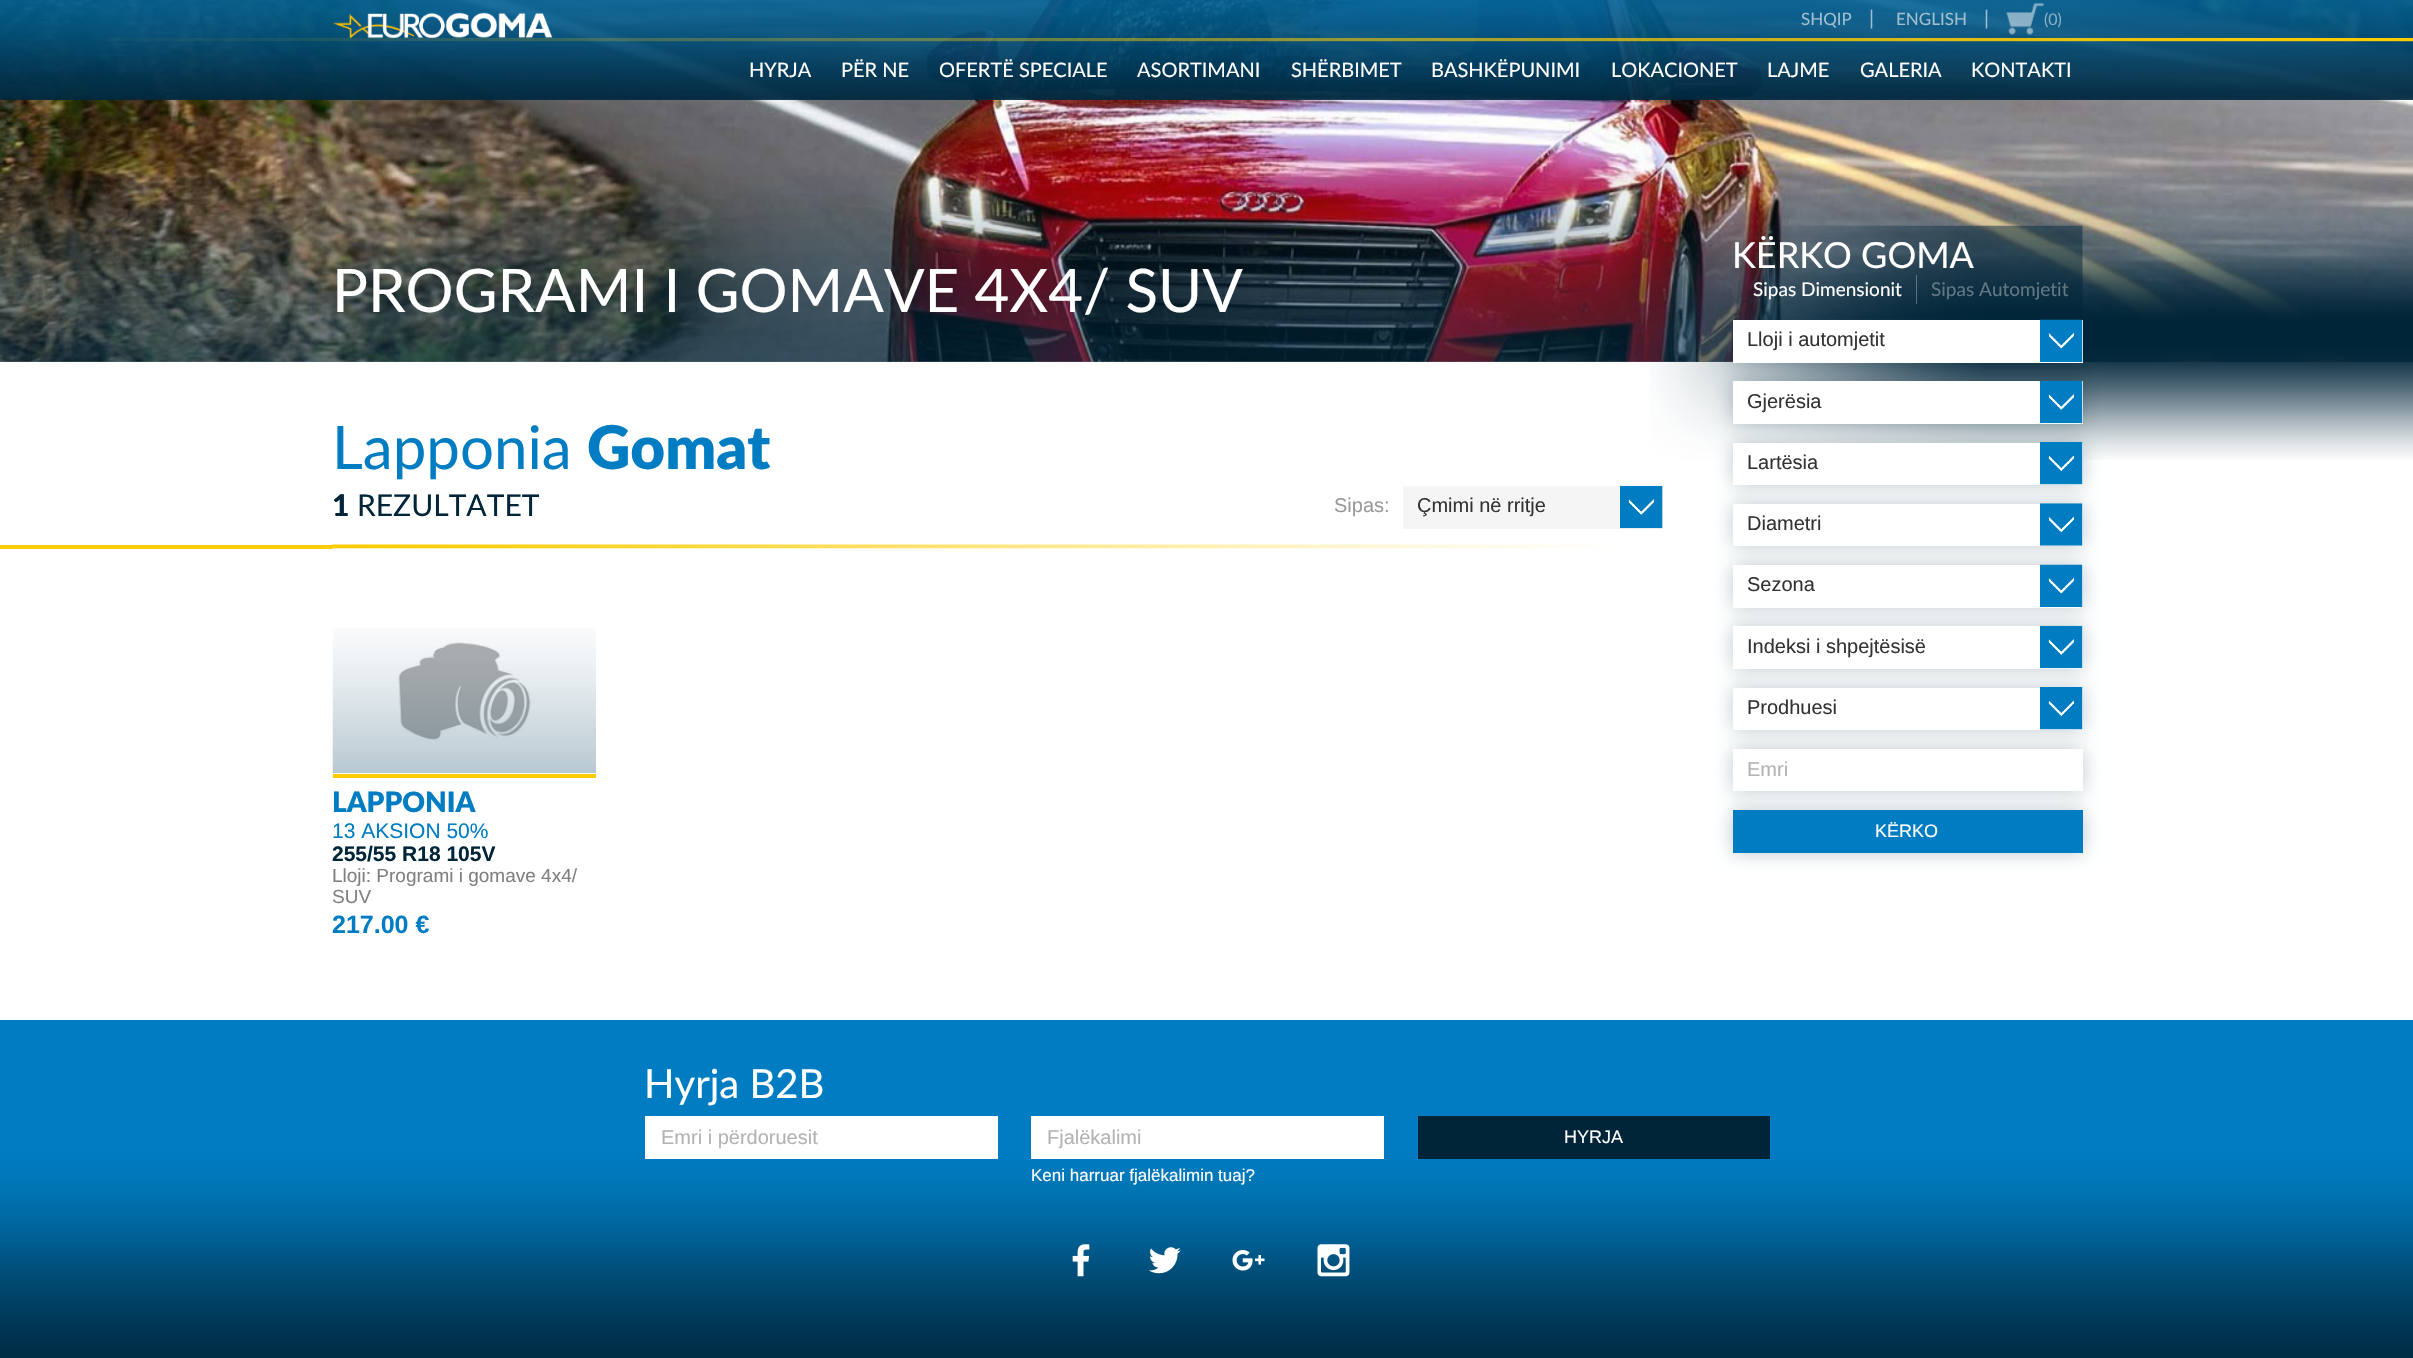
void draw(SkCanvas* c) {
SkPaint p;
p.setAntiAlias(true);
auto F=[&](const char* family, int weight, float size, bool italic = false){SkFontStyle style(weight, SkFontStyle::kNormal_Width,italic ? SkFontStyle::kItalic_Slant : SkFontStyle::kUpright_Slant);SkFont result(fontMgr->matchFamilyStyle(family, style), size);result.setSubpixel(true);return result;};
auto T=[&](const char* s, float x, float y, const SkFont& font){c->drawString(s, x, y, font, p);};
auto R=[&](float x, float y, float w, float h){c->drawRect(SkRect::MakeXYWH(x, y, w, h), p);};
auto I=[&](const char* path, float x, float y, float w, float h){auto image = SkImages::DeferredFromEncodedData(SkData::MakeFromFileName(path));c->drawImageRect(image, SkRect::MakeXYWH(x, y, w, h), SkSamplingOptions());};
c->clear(0xffffffff);
I("5.png",0,0,2413,362);
p.setColor(0xbf002438);
R(0,0,2413,100);
I("1.png",0,0,2413,100);
I("2.png",333,12,220,26);
auto f1 = F("Lato",400,17);
p.setColor(0xff9fbfd1);
T("SHQIP",1801,25,f1);
auto f2 = F("Lato",400,20);
T("|",1869,25,f2);
T("ENGLISH",1896,25,f1);
T("|",1984,25,f2);
I("3.png",2006,3,38,32);
auto f3 = F("Lato",400,16);
p.setColor(0xff87afc4);
T("(0)",2044,25,f3);
I("4.png",105,38,2308,4);
p.setColor(0xffffffff);
T("HYRJA",749,77,f2);
T("PËR NE",841,77,f2);
T("OFERTË SPECIALE",939,77,f2);
T("ASORTIMANI",1137,77,f2);
T("SHËRBIMET",1291,77,f2);
T("BASHKËPUNIMI",1431,77,f2);
T("LOKACIONET",1611,77,f2);
T("LAJME",1767,77,f2);
T("GALERIA",1860,77,f2);
T("KONTAKTI",1971,77,f2);
I("6.png",0,174,2413,188);
auto f4 = F("Lato",400,60);
T("PROGRAMI I GOMAVE 4X4/ SUV",332,312,f4);
I("7.png",1649,231,764,229);
I("8.png",1762,225,321,94);
auto f5 = F("Lato",400,36);
T("KËRKO GOMA",1732,268,f5);
auto f6 = F("Lato",400,19);
T("Sipas Dimensionit",1753,296,f6);
p.setColor(0x4dffffff);
R(1916,275,1,29);
p.setColor(0xff617783);
T("Sipas Automjetit",1931,296,f6);
p.setColor(0x40002438);
p.setMaskFilter(SkMaskFilter::MakeBlur(kNormal_SkBlurStyle, 9.5));
c->drawRect(SkRect::MakeXYWH(1733,320,350,43),p);
p.setMaskFilter(nullptr);
p.setColor(0xffffffff);
R(1733,320,350,43);
I("9.png",2040,319,43,43);
auto f7 = F("Liberation Sans",400,20);
p.setColor(0xff333333);
T("Lloji i automjetit",1747,346,f7);
p.setColor(0x40002438);
p.setMaskFilter(SkMaskFilter::MakeBlur(kNormal_SkBlurStyle, 9.5));
c->drawRect(SkRect::MakeXYWH(1733,381,350,43),p);
p.setMaskFilter(nullptr);
p.setColor(0xffffffff);
R(1733,381,350,43);
I("10.png",2040,380,43,44);
p.setColor(0xff333333);
T("Gjerësia",1747,408,f7);
p.setColor(0x40002438);
p.setMaskFilter(SkMaskFilter::MakeBlur(kNormal_SkBlurStyle, 9.5));
c->drawRect(SkRect::MakeXYWH(1733,443,350,42),p);
p.setMaskFilter(nullptr);
p.setColor(0xffffffff);
R(1733,443,350,42);
I("11.png",2040,442,43,43);
p.setColor(0xff333333);
T("Lartësia",1747,469,f7);
p.setColor(0x40002438);
p.setMaskFilter(SkMaskFilter::MakeBlur(kNormal_SkBlurStyle, 9.5));
c->drawRect(SkRect::MakeXYWH(1733,504,350,42),p);
p.setMaskFilter(nullptr);
p.setColor(0xffffffff);
R(1733,504,350,42);
I("12.png",2040,503,43,43);
p.setColor(0xff333333);
T("Diametri",1747,530,f7);
p.setColor(0x40002438);
p.setMaskFilter(SkMaskFilter::MakeBlur(kNormal_SkBlurStyle, 9.5));
c->drawRect(SkRect::MakeXYWH(1733,565,350,43),p);
p.setMaskFilter(nullptr);
p.setColor(0xffffffff);
R(1733,565,350,43);
I("13.png",2040,564,43,43);
p.setColor(0xff333333);
T("Sezona",1747,591,f7);
p.setColor(0x40002438);
p.setMaskFilter(SkMaskFilter::MakeBlur(kNormal_SkBlurStyle, 9.5));
c->drawRect(SkRect::MakeXYWH(1733,626,350,43),p);
p.setMaskFilter(nullptr);
p.setColor(0xffffffff);
R(1733,626,350,43);
I("14.png",2040,625,43,44);
p.setColor(0xff333333);
T("Indeksi i shpejtësisë",1747,653,f7);
p.setColor(0x40002438);
p.setMaskFilter(SkMaskFilter::MakeBlur(kNormal_SkBlurStyle, 9.5));
c->drawRect(SkRect::MakeXYWH(1733,688,350,42),p);
p.setMaskFilter(nullptr);
p.setColor(0xffffffff);
R(1733,688,350,42);
I("15.png",2040,687,43,43);
p.setColor(0xff333333);
T("Prodhuesi",1747,714,f7);
p.setColor(0x40002438);
p.setMaskFilter(SkMaskFilter::MakeBlur(kNormal_SkBlurStyle, 9.5));
c->drawRect(SkRect::MakeXYWH(1733,749,350,42),p);
p.setMaskFilter(nullptr);
p.setColor(0xffffffff);
R(1733,749,350,42);
p.setColor(0xffb3b3b3);
T("Emri",1747,776,f7);
p.setColor(0x40002438);
p.setMaskFilter(SkMaskFilter::MakeBlur(kNormal_SkBlurStyle, 9.5));
c->drawRect(SkRect::MakeXYWH(1733,810,350,43),p);
p.setMaskFilter(nullptr);
p.setColor(0xff007dc2);
R(1733,810,350,43);
auto f8 = F("Liberation Sans",400,18);
p.setColor(0xffffffff);
T("KËRKO",1875,837,f8);
p.setColor(0xff007dc2);
T("Lapponia",332,469,f4);
auto f9 = F("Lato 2",900,60);
T("Gomat",587,469,f9);
auto f10 = F("Lato",900,30);
p.setColor(0xff002438);
T("1",332,516,f10);
auto f11 = F("Lato",400,30);
T("REZULTATET",357,516,f11);
p.setColor(0xff999999);
T("Sipas:",1334,512,f7);
p.setColor(0xfff5f5f5);
R(1403,486,260,43);
I("16.png",1620,485,43,44);
p.setColor(0xff333333);
T("Çmimi në rritje",1417,512,f7);
I("17.png",332,544,1273,5);
p.setColor(0xffffcc00);
R(0,545,333,4);
R(333,774,263,4);
I("19.png",398,642,133,98);
I("18.png",332,628,264,145);
auto f12 = F("Lato 2",900,28);
p.setColor(0xff007dc2);
T("LAPPONIA",332,812,f12);
auto f13 = F("Liberation Sans",400,21);
T("13 AKSION 50%",332,838,f13);
auto f14 = F("Liberation Sans",700,21);
p.setColor(0xff002438);
T("255/55 R18 105V",332,861,f14);
auto f15 = F("Liberation Sans",400,19);
p.setColor(0xff808080);
T("Lloji: Programi i gomave 4x4/",332,882,f15);
T("SUV",332,903,f15);
auto f16 = F("Liberation Sans",700,25);
p.setColor(0xff007dc2);
T("217.00 €",332,933,f16);
R(0,1020,2413,243);
I("20.png",0,1158,2413,200);
auto f17 = F("Lato",400,40);
p.setColor(0xffffffff);
T("Hyrja B2B",644,1098,f17);
R(645,1116,353,43);
p.setColor(0xffb3b3b3);
T("Emri i përdoruesit",661,1144,f7);
p.setColor(0xffffffff);
R(1031,1116,353,43);
p.setColor(0xffb3b3b3);
T("Fjalëkalimi",1047,1144,f7);
auto f18 = F("Liberation Sans",400,17);
p.setColor(0xffffffff);
T("Keni harruar fjalëkalimin tuaj?",1031,1181,f18);
p.setColor(0xff002438);
R(1418,1116,352,43);
p.setColor(0xffffffff);
T("HYRJA",1564,1143,f8);
I("21.png",1072,1244,18,33);
I("22.png",1149,1247,32,27);
I("23.png",1232,1250,33,21);
I("24.png",1317,1244,33,33);
}
